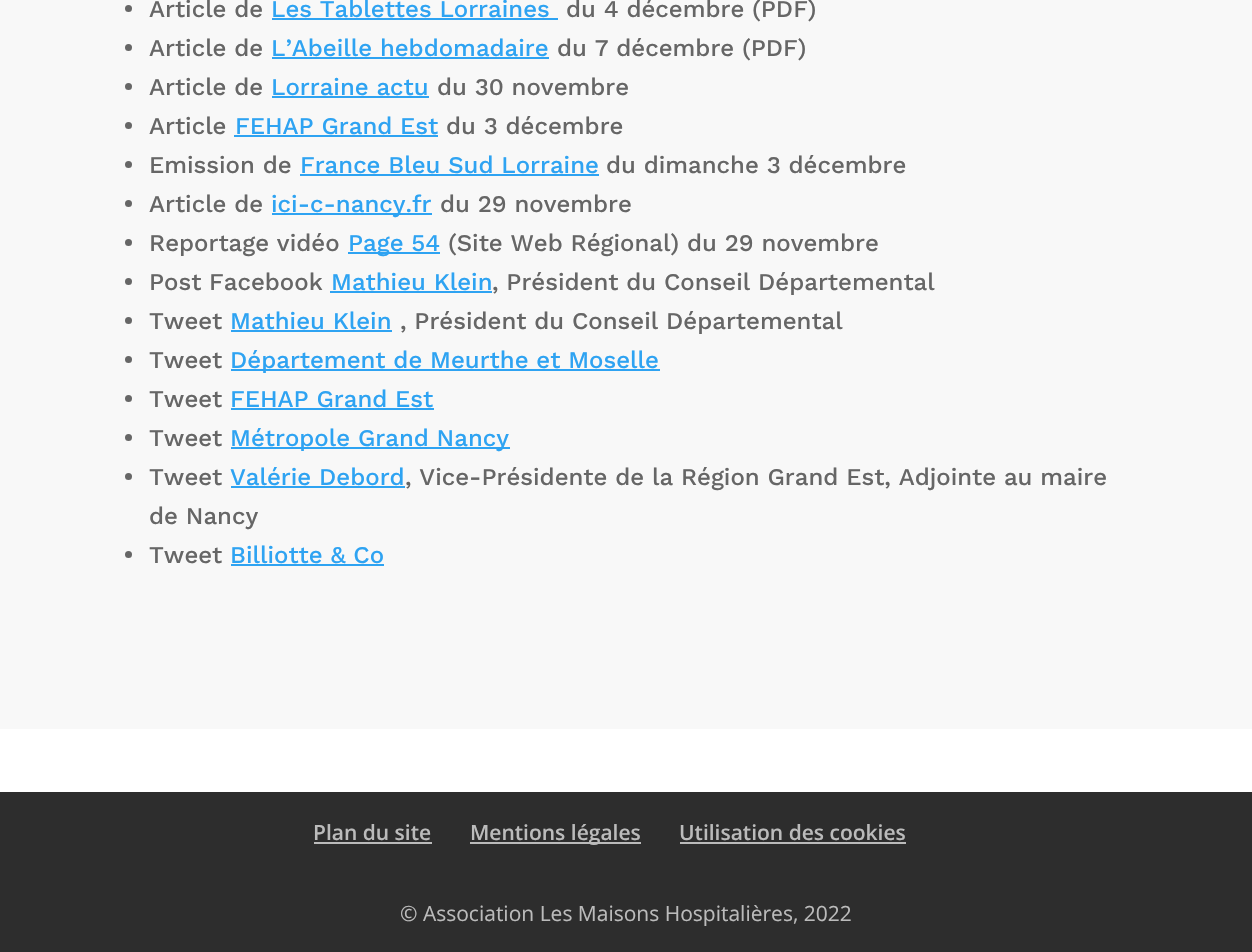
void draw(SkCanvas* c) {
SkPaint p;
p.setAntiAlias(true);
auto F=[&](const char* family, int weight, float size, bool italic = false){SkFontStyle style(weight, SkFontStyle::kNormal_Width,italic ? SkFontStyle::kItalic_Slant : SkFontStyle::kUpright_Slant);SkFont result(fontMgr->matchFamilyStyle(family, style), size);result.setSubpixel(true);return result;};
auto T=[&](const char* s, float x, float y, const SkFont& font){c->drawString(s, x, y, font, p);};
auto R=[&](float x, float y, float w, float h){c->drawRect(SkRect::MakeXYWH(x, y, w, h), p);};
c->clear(0xffffffff);
p.setColor(0xfff8f8f8);
R(0,0,1252,729);
p.setColor(0xff666666);
c->drawCircle(128.5,8.5,3.5,p);
auto f1 = F("Work Sans",500,24);
T("Article de",149,17,f1);
p.setColor(0xff2ea3f2);
T("Les Tablettes Lorraines",271,17,f1);
R(272,18,286,2);
p.setColor(0xff666666);
T("du 4 décembre (PDF)",566,17,f1);
c->drawCircle(128.5,47.5,3.5,p);
T("Article de",149,56,f1);
p.setColor(0xff2ea3f2);
T("L’Abeille hebdomadaire",271,56,f1);
R(272,57,277,2);
p.setColor(0xff666666);
T("du 7 décembre (PDF)",557,56,f1);
c->drawCircle(128.5,86.5,3.5,p);
T("Article de",149,95,f1);
p.setColor(0xff2ea3f2);
T("Lorraine actu",271,95,f1);
R(272,96,157,2);
p.setColor(0xff666666);
T("du 30 novembre",437,95,f1);
c->drawCircle(128.5,125.5,3.5,p);
T("Article",149,134,f1);
p.setColor(0xff2ea3f2);
T("FEHAP Grand Est",235,134,f1);
R(234,135,204,2);
p.setColor(0xff666666);
T("du 3 décembre",446,134,f1);
c->drawCircle(128.5,164.5,3.5,p);
T("Emission de",149,173,f1);
p.setColor(0xff2ea3f2);
T("France Bleu Sud Lorraine",300,173,f1);
R(300,174,299,2);
p.setColor(0xff666666);
T("du dimanche 3 décembre",606,173,f1);
c->drawCircle(128.5,203.5,3.5,p);
T("Article de",149,212,f1);
p.setColor(0xff2ea3f2);
R(272,213,160,2);
T("ici-c-nancy.fr",271,212,f1);
p.setColor(0xff666666);
T("du 29 novembre",440,212,f1);
c->drawCircle(128.5,242.5,3.5,p);
T("Reportage vidéo",149,251,f1);
p.setColor(0xff2ea3f2);
R(348,252,92,2);
T("Page 54",348,251,f1);
p.setColor(0xff666666);
T("(Site Web Régional) du 29 novembre",448,251,f1);
c->drawCircle(128.5,281.5,3.5,p);
T("Post Facebook",149,290,f1);
p.setColor(0xff2ea3f2);
T("Mathieu Klein",331,290,f1);
R(330,291,162,2);
p.setColor(0xff666666);
T(", Président du Conseil Départemental",492,290,f1);
c->drawCircle(128.5,320.5,3.5,p);
T("Tweet",149,329,f1);
p.setColor(0xff2ea3f2);
T("Mathieu Klein",230,329,f1);
R(231,330,161,2);
p.setColor(0xff666666);
T(", Président du Conseil Départemental",400,329,f1);
c->drawCircle(128.5,359.5,3.5,p);
T("Tweet",149,368,f1);
p.setColor(0xff2ea3f2);
R(231,369,429,2);
T("Département de Meurthe et Moselle",230,368,f1);
p.setColor(0xff666666);
c->drawCircle(128.5,398.5,3.5,p);
T("Tweet",149,407,f1);
p.setColor(0xff2ea3f2);
T("FEHAP Grand Est",230,407,f1);
R(231,408,203,2);
p.setColor(0xff666666);
c->drawCircle(128.5,437.5,3.5,p);
T("Tweet",149,446,f1);
p.setColor(0xff2ea3f2);
R(231,447,279,2);
T("Métropole Grand Nancy",230,446,f1);
p.setColor(0xff666666);
c->drawCircle(128.5,476.5,3.5,p);
T("Tweet",149,485,f1);
p.setColor(0xff2ea3f2);
T("Valérie Debord",230,485,f1);
R(231,486,174,2);
p.setColor(0xff666666);
T(", Vice-Présidente de la Région Grand Est, Adjointe au maire",405,485,f1);
T("de Nancy",149,524,f1);
c->drawCircle(128.5,554.5,3.5,p);
T("Tweet",149,563,f1);
p.setColor(0xff2ea3f2);
T("Billiotte & Co",230,563,f1);
R(231,564,153,2);
p.setColor(0xff2d2d2d);
R(0,792,1252,160);
auto f2 = F("Open Sans",600,21);
p.setColor(0xffbbbbbb);
T("Plan du site",313,840,f2);
R(314,842,118,2);
R(470,842,171,2);
T("Mentions légales",470,840,f2);
T("Utilisation des cookies",679,840,f2);
R(680,842,226,2);
auto f3 = F("Open Sans",400,21);
T("© Association Les Maisons Hospitalières, 2022",400,921,f3);
}
